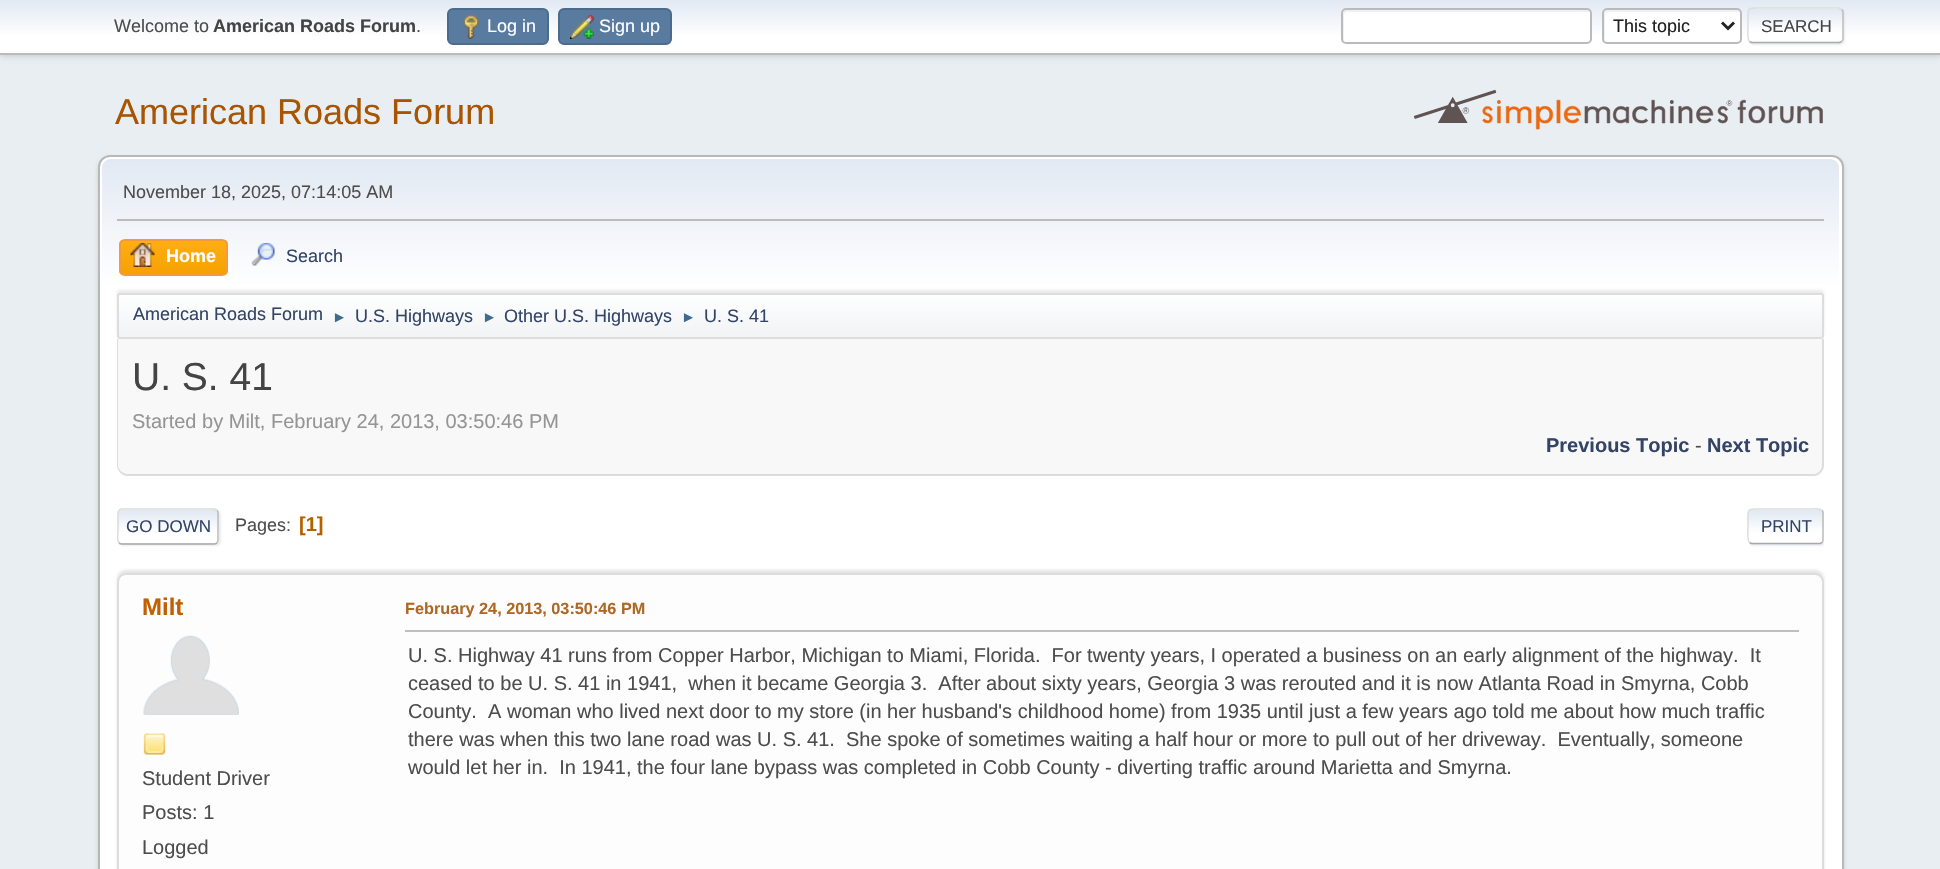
void draw(SkCanvas* c) {
SkPaint p;
p.setAntiAlias(true);
auto F=[&](const char* family, int weight, float size, bool italic = false){SkFontStyle style(weight, SkFontStyle::kNormal_Width,italic ? SkFontStyle::kItalic_Slant : SkFontStyle::kUpright_Slant);SkFont result(fontMgr->matchFamilyStyle(family, style), size);result.setSubpixel(true);return result;};
auto T=[&](const char* s, float x, float y, const SkFont& font){c->drawString(s, x, y, font, p);};
auto R=[&](float x, float y, float w, float h){c->drawRect(SkRect::MakeXYWH(x, y, w, h), p);};
auto Q=[&](float x, float y, float w, float h, float radius){c->drawRoundRect(SkRect::MakeXYWH(x, y, w, h), radius, radius, p);};
auto I=[&](const char* path, float x, float y, float w, float h){auto image = SkImages::DeferredFromEncodedData(SkData::MakeFromFileName(path));c->drawImageRect(image, SkRect::MakeXYWH(x, y, w, h), SkSamplingOptions());};
auto P=[&](const char* data, bool evenOdd = false){SkPath result = *SkParsePath::FromSVGString(data);if (evenOdd) result.setFillType(SkPathFillType::kEvenOdd);return result;};
c->clear(0xffe9eef2);
p.setColor(0x29000000);
p.setMaskFilter(SkMaskFilter::MakeBlur(kNormal_SkBlurStyle, 3));
c->drawRect(SkRect::MakeXYWH(0,2,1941,54),p);
p.setMaskFilter(nullptr);
{
const SkColor colors[] = {0xffe2e9f3,0xffffffff};
const float stops[] = {0,.7};
const SkPoint ends[] = {{971,0}, {971,53}};
p.setShader(SkGradientShader::MakeLinear(ends, colors, stops, 2, SkTileMode::kClamp));
p.setAlpha(255);
}
R(0,0,1940,53);
p.setShader(nullptr);
p.setColor(0xffbbbbbb);
R(0,53,1940,2);
auto f1 = F("Liberation Sans",400,18);
p.setColor(0xff4d4d4d);
T("Welcome to",114,32,f1);
auto f2 = F("Liberation Sans",700,18);
p.setColor(0xff444444);
T("American Roads Forum",213,32,f2);
p.setColor(0xff4d4d4d);
T(".",416,32,f1);
p.setColor(0xff597b9f);
c->drawRoundRect(SkRect::MakeXYWH(448,9,100,35),5,5,p);
p.setStroke(true);
p.setStrokeWidth(2);
p.setColor(0xff4a6b8c);
c->drawRoundRect(SkRect::MakeXYWH(448,9,100,35),5,5,p);
I("1.png",463,15,16,24);
p.setStroke(false);
p.setColor(0xffffffff);
T("Log in",487,32,f1);
p.setColor(0xff597b9f);
c->drawRoundRect(SkRect::MakeXYWH(559,9,112,35),5,5,p);
p.setStroke(true);
p.setColor(0xff4a6b8c);
c->drawRoundRect(SkRect::MakeXYWH(559,9,112,35),5,5,p);
I("2.png",570,15,24,24);
p.setStroke(false);
p.setColor(0xffffffff);
T("Sign up",599,32,f1);
Q(1341,8,251,36,5);
p.setColor(0xffecf1f8);
c->drawPath(P("M1347 12h243c0-2-1-3-3-3h-241c-2 0-3 1-3 3v27c0 1 0 2 1 2v-26c0-2 1-3 3-3z"),p);
p.setStroke(true);
p.setColor(0xffbbbbbb);
c->drawRoundRect(SkRect::MakeXYWH(1342,9,249,34),4,4,p);
p.setStroke(false);
p.setColor(0xffffffff);
Q(1602,8,140,36,5);
p.setColor(0xffecf1f8);
c->drawPath(P("M1608 12h132c0-2-1-3-3-3h-130c-2 0-3 1-3 3v27c0 1 0 2 1 2v-26c0-2 1-3 3-3z"),p);
p.setStroke(true);
p.setColor(0xffbbbbbb);
c->drawRoundRect(SkRect::MakeXYWH(1603,9,138,34),4,4,p);
p.setStrokeWidth(3);
p.setColor(0xff222222);
c->drawPath(P("M1722 22.5l6 6l6-6"),p);
p.setStroke(false);
T("This topic",1613,32,f1);
p.setColor(0x91dddddd);
p.setMaskFilter(SkMaskFilter::MakeBlur(kNormal_SkBlurStyle, 1));
c->drawRoundRect(SkRect::MakeXYWH(1749,9,96,36),5,5,p);
p.setMaskFilter(nullptr);
c->save();
c->clipPath(P("M1753 8h86c3 0 5 2 5 5v26c0 3-2 5-5 5h-86c-3 0-5-2-5-5v-26c0-3 2-5 5-5z"),true);
{
const SkColor colors[] = {0xffe2e9f3,0xffffffff};
const float stops[] = {0,.7};
const SkPoint ends[] = {{1796,-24}, {1796,9}};
p.setShader(SkGradientShader::MakeLinear(ends, colors, stops, 2, SkTileMode::kClamp));
p.setAlpha(255);
}
R(1748,8,96,1);
{
const SkColor colors[] = {0xffe2e9f3,0xffffffff};
const float stops[] = {0,.7};
const SkPoint ends[] = {{1796,9}, {1796,42}};
p.setShader(SkGradientShader::MakeLinear(ends, colors, stops, 2, SkTileMode::kClamp));
p.setAlpha(255);
}
R(1748,9,96,33);
{
const SkColor colors[] = {0xffe2e9f3,0xffffffff};
const float stops[] = {0,.7};
const SkPoint ends[] = {{1796,42}, {1796,75}};
p.setShader(SkGradientShader::MakeLinear(ends, colors, stops, 2, SkTileMode::kClamp));
p.setAlpha(255);
}
R(1748,42,96,2);
c->restore();
p.setStroke(true);
p.setStrokeWidth(1.5);
p.setShader(nullptr);
p.setColor(0xffbbbbbb);
c->drawPath(P("M1841.5 9.5c1 .5 1.5 1.5 1.5 2.5v27c0 1-.5 2-1.5 2.5"),p);
p.setColor(0xffaaaaaa);
c->drawPath(P("M1841.5 41.5l-2 1h-88l-2-1"),p);
p.setColor(0xffdddddd);
c->drawPath(P("M1749.5 41.5c-2.5-2-1.5-13-1.5-16c0-20.5-3-17.5 18.5-17.5h72.5l2.5 1.5"),p);
auto f3 = F("Liberation Sans",400,17);
p.setStroke(false);
p.setColor(0xff444444);
T("SEARCH",1761,32,f3);
auto f4 = F("Liberation Sans",400,36);
p.setColor(0xffa85400);
T("American Roads Forum",115,124,f4);
I("3.png",1413,89,410,41);
p.setColor(0x24000000);
p.setMaskFilter(SkMaskFilter::MakeBlur(kNormal_SkBlurStyle, 2));
c->drawRoundRect(SkRect::MakeXYWH(98,158,1746,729),12,12,p);
p.setMaskFilter(nullptr);
p.setColor(0xffffffff);
c->drawRoundRect(SkRect::MakeXYWH(99,156,1744,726),11,11,p);
p.setStroke(true);
p.setStrokeWidth(2);
p.setColor(0xffb8b8b8);
c->drawRoundRect(SkRect::MakeXYWH(99,156,1744,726),11,11,p);
p.setStroke(false);
{
const SkColor colors[] = {0xffe2e9f3,0xffffffff};
const float stops[] = {0,.7};
const SkPoint ends[] = {{971,159}, {971,342}};
p.setShader(SkGradientShader::MakeLinear(ends, colors, stops, 2, SkTileMode::kClamp));
p.setAlpha(255);
}
c->drawPath(P("M111 159h1719c5 0 9 4 9 9v174h-1737v-174c0-5 4-9 9-9z"),p);
p.setShader(nullptr);
p.setColor(0xffbbbbbb);
R(117,219,1707,2);
p.setColor(0xff4d4d4d);
T("November 18, 2025, 07:14:05 AM",123,198,f1);
c->save();
c->clipPath(P("M125 239h97c3.5 0 6 2.5 6 6v25c0 3.5-2.5 6-6 6h-97c-3.5 0-6-2.5-6-6v-25c0-3.5 2.5-6 6-6z"),true);
{
const SkColor colors[] = {0xffffae14,0xfff5a100};
const float stops[] = {0,1};
const SkPoint ends[] = {{173,240}, {173,275}};
p.setShader(SkGradientShader::MakeLinear(ends, colors, stops, 2, SkTileMode::kClamp));
p.setAlpha(255);
}
R(119,240,109,35);
c->restore();
p.setStroke(true);
p.setShader(nullptr);
p.setColor(0xfff49a3a);
c->drawRoundRect(SkRect::MakeXYWH(120,240,107,35),5,5,p);
I("4.png",130,243,25,24);
p.setStroke(false);
p.setColor(0xffffffff);
T("Home",166,262,f2);
I("5.png",251,243,24,23);
p.setColor(0xff334466);
T("Search",286,262,f1);
p.setColor(0x14000000);
p.setMaskFilter(SkMaskFilter::MakeBlur(kNormal_SkBlurStyle, 1.5));
c->drawRoundRect(SkRect::MakeXYWH(117,290,1707,46),3,3,p);
p.setMaskFilter(nullptr);
c->save();
c->clipPath(P("M120 293h1701c1.5 0 3 1.5 3 3v40c0 1.5-1.5 3-3 3h-1701c-1.5 0-3-1.5-3-3v-40c0-1.5 1.5-3 3-3z"),true);
{
const SkColor colors[] = {0xffffffff,0xfff1f3f5};
const float stops[] = {0,.95};
const SkPoint ends[] = {{971,294}, {971,338}};
p.setShader(SkGradientShader::MakeLinear(ends, colors, stops, 2, SkTileMode::kClamp));
p.setAlpha(255);
}
R(117,294,1707,44);
c->restore();
p.setStroke(true);
p.setShader(nullptr);
p.setColor(0xffdddddd);
c->drawRoundRect(SkRect::MakeXYWH(118,294,1705,44),2,2,p);
p.setStroke(false);
p.setColor(0xff334466);
T("American Roads Forum",133,320,f1);
auto f5 = F("Liberation Sans",400,15);
p.setColor(0xff3f6b8c);
T("►",332,322,f5);
p.setColor(0xff334466);
T("U.S. Highways",355,322,f1);
p.setColor(0xff3f6b8c);
T("►",482,322,f5);
p.setColor(0xff334466);
T("Other U.S. Highways",504,322,f1);
p.setColor(0xff3f6b8c);
T("►",681,322,f5);
p.setColor(0xff334466);
T("U. S. 41",704,322,f1);
p.setColor(0xfff8f8f8);
c->drawPath(P("M117 339h1707v126c0 6-5 11-11 11h-1685c-6 0-11-5-11-11z"),p);
p.setColor(0xffdddddd);
c->drawPath(P("M117 339h1707v126c0 6-5 11-10 11h-1686c-6 0-11-5-11-11zm1 0h1704v126c0 5-4 9-8 9h-1686c-5 0-10-4-10-9z",true),p);
auto f6 = F("Liberation Sans",400,39);
p.setColor(0xff444444);
T("U. S. 41",132,390,f6);
auto f7 = F("Liberation Sans",400,20);
p.setColor(0xff959595);
T("Started by Milt, February 24, 2013, 03:50:46 PM",132,428,f7);
auto f8 = F("Liberation Sans",700,20);
p.setColor(0xff334466);
T("Previous Topic",1546,452,f8);
p.setColor(0xff4d4d4d);
T("-",1695,452,f7);
p.setColor(0xff334466);
T("Next Topic",1707,452,f8);
p.setColor(0x91dddddd);
p.setMaskFilter(SkMaskFilter::MakeBlur(kNormal_SkBlurStyle, 1));
c->drawRoundRect(SkRect::MakeXYWH(119,510,102,36),5,5,p);
p.setMaskFilter(nullptr);
c->save();
c->clipPath(P("M122 509h92c3 0 5 2 5 5v26c0 3-2 5-5 5h-92c-3 0-5-2-5-5v-26c0-3 2-5 5-5z"),true);
{
const SkColor colors[] = {0xffe2e9f3,0xffffffff};
const float stops[] = {0,.7};
const SkPoint ends[] = {{168,510}, {168,543}};
p.setShader(SkGradientShader::MakeLinear(ends, colors, stops, 2, SkTileMode::kClamp));
p.setAlpha(255);
}
R(117,510,102,33);
{
const SkColor colors[] = {0xffe2e9f3,0xffffffff};
const float stops[] = {0,.7};
const SkPoint ends[] = {{168,543}, {168,576}};
p.setShader(SkGradientShader::MakeLinear(ends, colors, stops, 2, SkTileMode::kClamp));
p.setAlpha(255);
}
R(117,543,102,2);
c->restore();
p.setStroke(true);
p.setStrokeWidth(1.5);
p.setShader(nullptr);
p.setColor(0xffbbbbbb);
c->drawPath(P("M217 510.5c1 .5 1 1.5 1 2.5v27c0 1 0 2-1 2.5"),p);
p.setColor(0xffaaaaaa);
c->drawPath(P("M217 542.5c-.5 1-1.5 1.5-2.5 1.5h-93c-1 0-2-.5-2.5-1.5"),p);
c->save();
c->clipRect(SkRect::MakeXYWH(117,498,1707,57));
p.setColor(0xffdddddd);
c->drawPath(P("M119 542.5c-2.5-2.5-1-8.5-1-11.5v-13.5c0-3-1-8 3.5-8.5h93l2.5 1.5"),p);
c->restore();
p.setStroke(false);
p.setColor(0xff334466);
T("GO DOWN",126,532,f3);
p.setColor(0xff4d4d4d);
T("Pages:",235,531,f1);
p.setColor(0xffb46100);
T("[1]",299,531,f8);
c->save();
c->clipRect(SkRect::MakeXYWH(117,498,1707,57));
p.setColor(0x91dddddd);
p.setMaskFilter(SkMaskFilter::MakeBlur(kNormal_SkBlurStyle, 1));
c->drawRoundRect(SkRect::MakeXYWH(1749,510,77,36),5,5,p);
p.setMaskFilter(nullptr);
c->restore();
p.setColor(0xffffffff);
Q(1748,509,76,36,5);
c->save();
c->clipPath(P("M1753 509h66c3 0 5 2 5 5v26c0 3-2 5-5 5h-66c-3 0-5-2-5-5v-26c0-3 2-5 5-5z"),true);
{
const SkColor colors[] = {0xffe2e9f3,0xffffffff};
const float stops[] = {0,.7};
const SkPoint ends[] = {{1786,510}, {1786,543}};
p.setShader(SkGradientShader::MakeLinear(ends, colors, stops, 2, SkTileMode::kClamp));
p.setAlpha(255);
}
R(1748,510,76,33);
{
const SkColor colors[] = {0xffe2e9f3,0xffffffff};
const float stops[] = {0,.7};
const SkPoint ends[] = {{1786,543}, {1786,576}};
p.setShader(SkGradientShader::MakeLinear(ends, colors, stops, 2, SkTileMode::kClamp));
p.setAlpha(255);
}
R(1748,543,76,2);
c->restore();
p.setStroke(true);
p.setShader(nullptr);
p.setColor(0xffbbbbbb);
c->drawPath(P("M1822 510.5c1 .5 1 1.5 1 2.5v27c0 1 0 2-1 2.5"),p);
p.setColor(0xffaaaaaa);
c->drawPath(P("M1822 542.5l-2 1h-68.5l-2-1"),p);
p.setColor(0xffdddddd);
c->drawPath(P("M1749.5 542.5c-2.5-2-1.5-13-1.5-16c0-19-3-17.5 15-17.5h45c1.5 0 11.5-1.5 14 1.5"),p);
p.setStroke(false);
p.setColor(0xff334466);
T("PRINT",1761,532,f3);
p.setColor(0x1a000000);
p.setMaskFilter(SkMaskFilter::MakeBlur(kNormal_SkBlurStyle, 1.5));
c->drawRoundRect(SkRect::MakeXYWH(117,570,1707,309),9,9,p);
p.setMaskFilter(nullptr);
p.setColor(0xfffdfdfd);
c->drawRoundRect(SkRect::MakeXYWH(118,574,1705,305),8,8,p);
p.setStroke(true);
p.setStrokeWidth(2);
p.setColor(0xffdddddd);
c->drawRoundRect(SkRect::MakeXYWH(118,574,1705,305),8,8,p);
auto f9 = F("Liberation Sans",700,24);
p.setStroke(false);
p.setColor(0xffc06002);
T("Milt",142,615,f9);
I("6.png",143,635,96,80);
I("7.png",143,733,23,22);
p.setColor(0xff4d4d4d);
T("Student Driver",142,785,f7);
T("Posts: 1",142,819,f7);
T("Logged",142,854,f7);
auto f10 = F("Liberation Sans",700,16.25);
p.setColor(0xffad6825);
T("February 24, 2013, 03:50:46 PM",405,614,f10);
p.setColor(0xffbfbfbf);
R(405,630,1394,2);
p.setColor(0xff4d4d4d);
T("U. S. Highway 41 runs from Copper Harbor, Michigan to Miami, Florida.  For twenty years, I operated a business on an early alignment of the highway.  It",408,662,f7);
T("ceased to be U. S. 41 in 1941,  when it became Georgia 3.  After about sixty years, Georgia 3 was rerouted and it is now Atlanta Road in Smyrna, Cobb",408,690,f7);
T("County.  A woman who lived next door to my store (in her husband's childhood home) from 1935 until just a few years ago told me about how much traffic",408,718,f7);
T("there was when this two lane road was U. S. 41.  She spoke of sometimes waiting a half hour or more to pull out of her driveway.  Eventually, someone",408,746,f7);
T("would let her in.  In 1941, the four lane bypass was completed in Cobb County - diverting traffic around Marietta and Smyrna.",408,774,f7);
}
